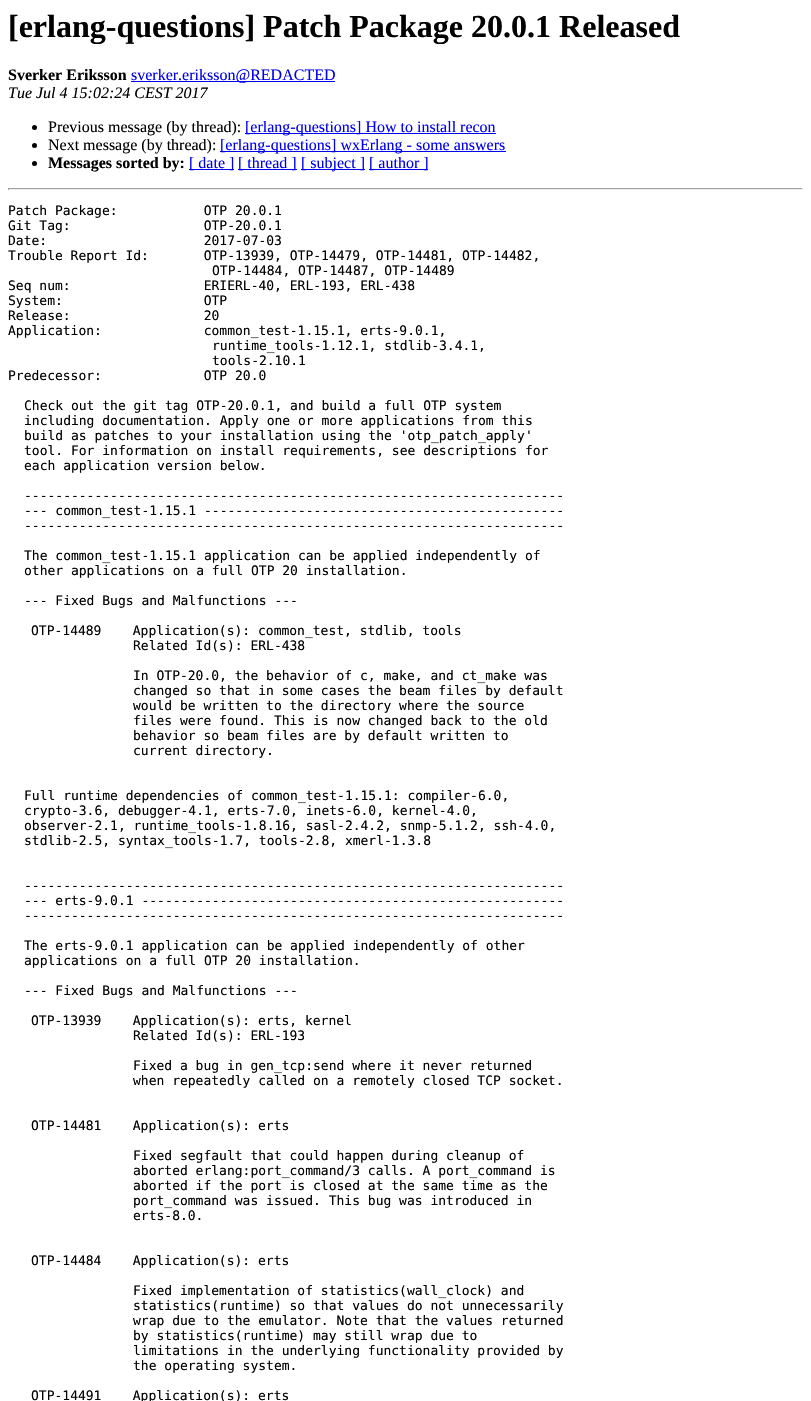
void draw(SkCanvas* c) {
SkPaint p;
p.setAntiAlias(true);
auto F=[&](const char* family, int weight, float size, bool italic = false){SkFontStyle style(weight, SkFontStyle::kNormal_Width,italic ? SkFontStyle::kItalic_Slant : SkFontStyle::kUpright_Slant);SkFont result(fontMgr->matchFamilyStyle(family, style), size);result.setSubpixel(true);return result;};
auto T=[&](const char* s, float x, float y, const SkFont& font){c->drawString(s, x, y, font, p);};
auto R=[&](float x, float y, float w, float h){c->drawRect(SkRect::MakeXYWH(x, y, w, h), p);};
c->clear(0xffffffff);
auto f1 = F("Liberation Serif",700,32);
p.setColor(0xff000000);
T("[erlang-questions] Patch Package 20.0.1 Released",8,37,f1);
auto f2 = F("Liberation Serif",700,16);
T("Sverker Eriksson",8,80,f2);
p.setColor(0xff0000ee);
R(131,81,204,1);
auto f3 = F("Liberation Serif",400,16);
T("sverker.eriksson@REDACTED",131,80,f3);
auto f4 = F("Liberation Serif",400,16,true);
p.setColor(0xff000000);
T("Tue Jul 4 15:02:24 CEST 2017",8,98,f4);
c->drawCircle(34.5,127.5,2.5,p);
T("Previous message (by thread):",48,132,f3);
p.setColor(0xff0000ee);
R(245,133,251,1);
T("[erlang-questions] How to install recon",245,132,f3);
p.setColor(0xff000000);
c->drawCircle(34.5,145.5,2.5,p);
T("Next message (by thread):",48,150,f3);
p.setColor(0xff0000ee);
R(220,151,286,1);
T("[erlang-questions] wxErlang - some answers",220,150,f3);
p.setColor(0xff000000);
c->drawCircle(34.5,163.5,2.5,p);
T("Messages sorted by:",48,168,f2);
p.setColor(0xff0000ee);
R(189,169,45,1);
T("[ date ]",189,168,f3);
R(238,169,59,1);
T("[ thread ]",238,168,f3);
R(301,169,64,1);
T("[ subject ]",301,168,f3);
R(369,169,59,1);
T("[ author ]",369,168,f3);
p.setColor(0xff9f9f9f);
R(8,188,795,1);
p.setColor(0xffeeeeee);
R(802,188,1,2);
R(8,189,795,1);
p.setColor(0xff9f9f9f);
R(8,188,1,2);
auto f5 = F("DejaVu Sans Mono",400,13);
p.setColor(0xff000000);
T("Patch Package:           OTP 20.0.1",8,215,f5);
T("Git Tag:                 OTP-20.0.1",8,230,f5);
T("Date:                    2017-07-03",8,245,f5);
T("Trouble Report Id:       OTP-13939, OTP-14479, OTP-14481, OTP-14482,",8,260,f5);
T("OTP-14484, OTP-14487, OTP-14489",212,275,f5);
T("Seq num:                 ERIERL-40, ERL-193, ERL-438",8,290,f5);
T("System:                  OTP",8,305,f5);
T("Release:                 20",8,320,f5);
T("Application:             common_test-1.15.1, erts-9.0.1,",8,335,f5);
T("runtime_tools-1.12.1, stdlib-3.4.1,",212,350,f5);
T("tools-2.10.1",212,365,f5);
T("Predecessor:             OTP 20.0",8,380,f5);
T("Check out the git tag OTP-20.0.1, and build a full OTP system",24,410,f5);
T("including documentation. Apply one or more applications from this",24,425,f5);
T("build as patches to your installation using the 'otp_patch_apply'",24,440,f5);
T("tool. For information on install requirements, see descriptions for",24,455,f5);
T("each application version below.",24,470,f5);
T("---------------------------------------------------------------------",24,500,f5);
T("--- common_test-1.15.1 ----------------------------------------------",24,515,f5);
T("---------------------------------------------------------------------",24,530,f5);
T("The common_test-1.15.1 application can be applied independently of",24,560,f5);
T("other applications on a full OTP 20 installation.",24,575,f5);
T("--- Fixed Bugs and Malfunctions ---",24,605,f5);
T("OTP-14489    Application(s): common_test, stdlib, tools",31,635,f5);
T("Related Id(s): ERL-438",133,650,f5);
T("In OTP-20.0, the behavior of c, make, and ct_make was",133,680,f5);
T("changed so that in some cases the beam files by default",133,695,f5);
T("would be written to the directory where the source",133,710,f5);
T("files were found. This is now changed back to the old",133,725,f5);
T("behavior so beam files are by default written to",133,740,f5);
T("current directory.",133,755,f5);
T("Full runtime dependencies of common_test-1.15.1: compiler-6.0,",24,800,f5);
T("crypto-3.6, debugger-4.1, erts-7.0, inets-6.0, kernel-4.0,",24,815,f5);
T("observer-2.1, runtime_tools-1.8.16, sasl-2.4.2, snmp-5.1.2, ssh-4.0,",24,830,f5);
T("stdlib-2.5, syntax_tools-1.7, tools-2.8, xmerl-1.3.8",24,845,f5);
T("---------------------------------------------------------------------",24,890,f5);
T("--- erts-9.0.1 ------------------------------------------------------",24,905,f5);
T("---------------------------------------------------------------------",24,920,f5);
T("The erts-9.0.1 application can be applied independently of other",24,950,f5);
T("applications on a full OTP 20 installation.",24,965,f5);
T("--- Fixed Bugs and Malfunctions ---",24,995,f5);
T("OTP-13939    Application(s): erts, kernel",31,1025,f5);
T("Related Id(s): ERL-193",133,1040,f5);
T("Fixed a bug in gen_tcp:send where it never returned",133,1070,f5);
T("when repeatedly called on a remotely closed TCP socket.",133,1085,f5);
T("OTP-14481    Application(s): erts",31,1130,f5);
T("Fixed segfault that could happen during cleanup of",133,1160,f5);
T("aborted erlang:port_command/3 calls. A port_command is",133,1175,f5);
T("aborted if the port is closed at the same time as the",133,1190,f5);
T("port_command was issued. This bug was introduced in",133,1205,f5);
T("erts-8.0.",133,1220,f5);
T("OTP-14484    Application(s): erts",31,1265,f5);
T("Fixed implementation of statistics(wall_clock) and",133,1295,f5);
T("statistics(runtime) so that values do not unnecessarily",133,1310,f5);
T("wrap due to the emulator. Note that the values returned",133,1325,f5);
T("by statistics(runtime) may still wrap due to",133,1340,f5);
T("limitations in the underlying functionality provided by",133,1355,f5);
T("the operating system.",133,1370,f5);
T("OTP-14491    Application(s): erts",31,1400,f5);
}
